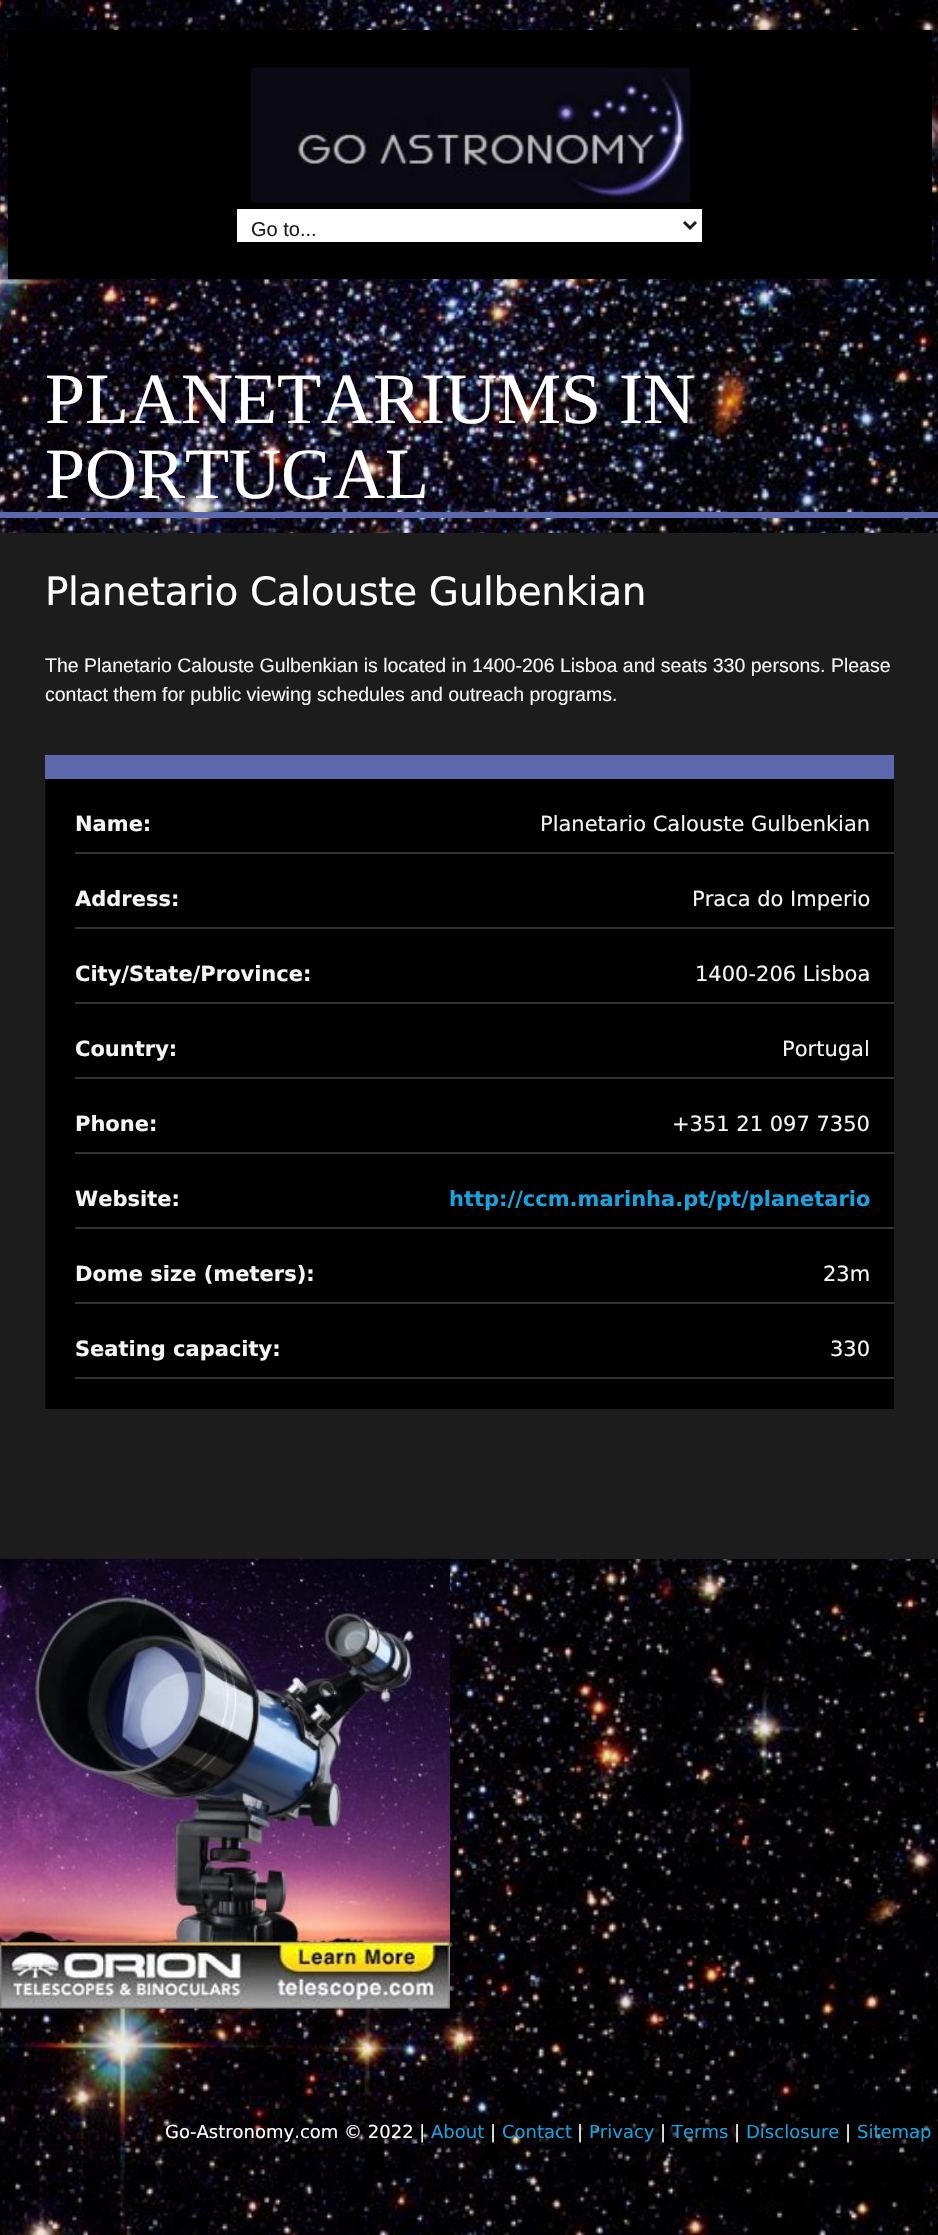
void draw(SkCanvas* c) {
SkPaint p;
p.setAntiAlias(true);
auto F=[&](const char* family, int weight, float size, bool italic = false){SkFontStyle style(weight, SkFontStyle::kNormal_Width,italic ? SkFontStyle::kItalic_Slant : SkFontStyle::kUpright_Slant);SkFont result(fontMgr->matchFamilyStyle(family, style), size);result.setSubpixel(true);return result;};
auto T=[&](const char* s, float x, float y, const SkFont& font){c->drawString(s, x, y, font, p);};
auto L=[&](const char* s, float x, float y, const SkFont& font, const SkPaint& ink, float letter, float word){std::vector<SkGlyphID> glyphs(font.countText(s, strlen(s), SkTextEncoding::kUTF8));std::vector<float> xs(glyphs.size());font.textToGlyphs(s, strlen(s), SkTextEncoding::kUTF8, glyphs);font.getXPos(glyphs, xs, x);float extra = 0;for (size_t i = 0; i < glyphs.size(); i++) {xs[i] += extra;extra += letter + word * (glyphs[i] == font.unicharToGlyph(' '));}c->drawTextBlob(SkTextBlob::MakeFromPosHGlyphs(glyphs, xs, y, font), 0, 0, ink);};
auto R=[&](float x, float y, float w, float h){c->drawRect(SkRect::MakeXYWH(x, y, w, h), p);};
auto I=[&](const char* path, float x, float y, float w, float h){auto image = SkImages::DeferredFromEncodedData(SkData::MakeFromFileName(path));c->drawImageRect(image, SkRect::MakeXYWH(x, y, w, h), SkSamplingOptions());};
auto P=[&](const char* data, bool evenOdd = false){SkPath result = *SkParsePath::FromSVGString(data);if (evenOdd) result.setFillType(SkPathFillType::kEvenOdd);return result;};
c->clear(0xffffffff);
I("1.png",0,0,938,2235);
p.setColor(0xff000000);
R(8,30,924,249);
I("2.png",250,67,440,136);
p.setColor(0xffffffff);
R(237,209,465,33);
p.setStroke(true);
p.setStrokeWidth(3);
p.setColor(0xff1c1c1c);
c->drawPath(P("M684 222l6 6l6-6"),p);
auto f1 = F("Liberation Sans",400,20);
p.setStroke(false);
T("Go to...",251,236,f1);
p.setColor(0xff5b68ab);
R(0,512,938,6);
auto f2 = F("Liberation Serif",400,72);
p.setColor(0xffffffff);
T("PLANETARIUMS IN",45,423,f2);
T("PORTUGAL",45,498,f2);
p.setColor(0xff1c1c1c);
R(0,533,938,1026);
auto f3 = F("DejaVu Sans",400,39);
p.setColor(0xffffffff);
L("Planetario Calouste Gulbenkian",45,605,f3,p,-.4,0);
auto f4 = F("Liberation Sans",400,19.5);
p.setColor(0xfff5f5f5);
T("The Planetario Calouste Gulbenkian is located in 1400-206 Lisboa and seats 330 persons. Please",45,672,f4);
T("contact them for public viewing schedules and outreach programs.",45,701,f4);
p.setColor(0xff5b68ab);
R(45,755,849,24);
p.setColor(0xff000000);
R(45,779,849,630);
p.setColor(0xff333333);
R(75,852,819,2);
auto f5 = F("DejaVu Sans",700,21);
p.setColor(0xfff5f5f5);
T("Name:",75,831,f5);
auto f6 = F("DejaVu Sans",400,21);
T("Planetario Calouste Gulbenkian",540,831,f6);
p.setColor(0xff333333);
R(75,927,819,2);
p.setColor(0xfff5f5f5);
T("Address:",75,906,f5);
T("Praca do Imperio",692,906,f6);
p.setColor(0xff333333);
R(75,1002,819,2);
p.setColor(0xfff5f5f5);
T("City/State/Province:",75,981,f5);
T("1400-206 Lisboa",695,981,f6);
p.setColor(0xff333333);
R(75,1077,819,2);
p.setColor(0xfff5f5f5);
T("Country:",75,1056,f5);
T("Portugal",782,1056,f6);
p.setColor(0xff333333);
R(75,1152,819,2);
p.setColor(0xfff5f5f5);
T("Phone:",75,1131,f5);
T("+351 21 097 7350",672,1131,f6);
p.setColor(0xff333333);
R(75,1227,819,2);
p.setColor(0xfff5f5f5);
T("Website:",75,1206,f5);
p.setColor(0xff19a2de);
T("http://ccm.marinha.pt/pt/planetario",449,1206,f5);
p.setColor(0xff333333);
R(75,1302,819,2);
p.setColor(0xfff5f5f5);
T("Dome size (meters):",75,1281,f5);
T("23m",823,1281,f6);
p.setColor(0xff333333);
R(75,1377,819,2);
p.setColor(0xfff5f5f5);
T("Seating capacity:",75,1356,f5);
T("330",830,1356,f6);
I("3.png",0,1558,450,451);
auto f7 = F("DejaVu Sans",400,18);
p.setColor(0xffffffff);
T("Go-Astronomy.com © 2022 |",165,2138,f7);
p.setColor(0xff19a2de);
T("About",431,2138,f7);
p.setColor(0xffffffff);
T("|",490,2138,f7);
p.setColor(0xff19a2de);
T("Contact",502,2138,f7);
p.setColor(0xffffffff);
T("|",577,2138,f7);
p.setColor(0xff19a2de);
T("Privacy",589,2138,f7);
p.setColor(0xffffffff);
T("|",660,2138,f7);
p.setColor(0xff19a2de);
T("Terms",672,2138,f7);
p.setColor(0xffffffff);
T("|",734,2138,f7);
p.setColor(0xff19a2de);
T("Disclosure",746,2138,f7);
p.setColor(0xffffffff);
T("|",845,2138,f7);
p.setColor(0xff19a2de);
T("Sitemap",857,2138,f7);
}
